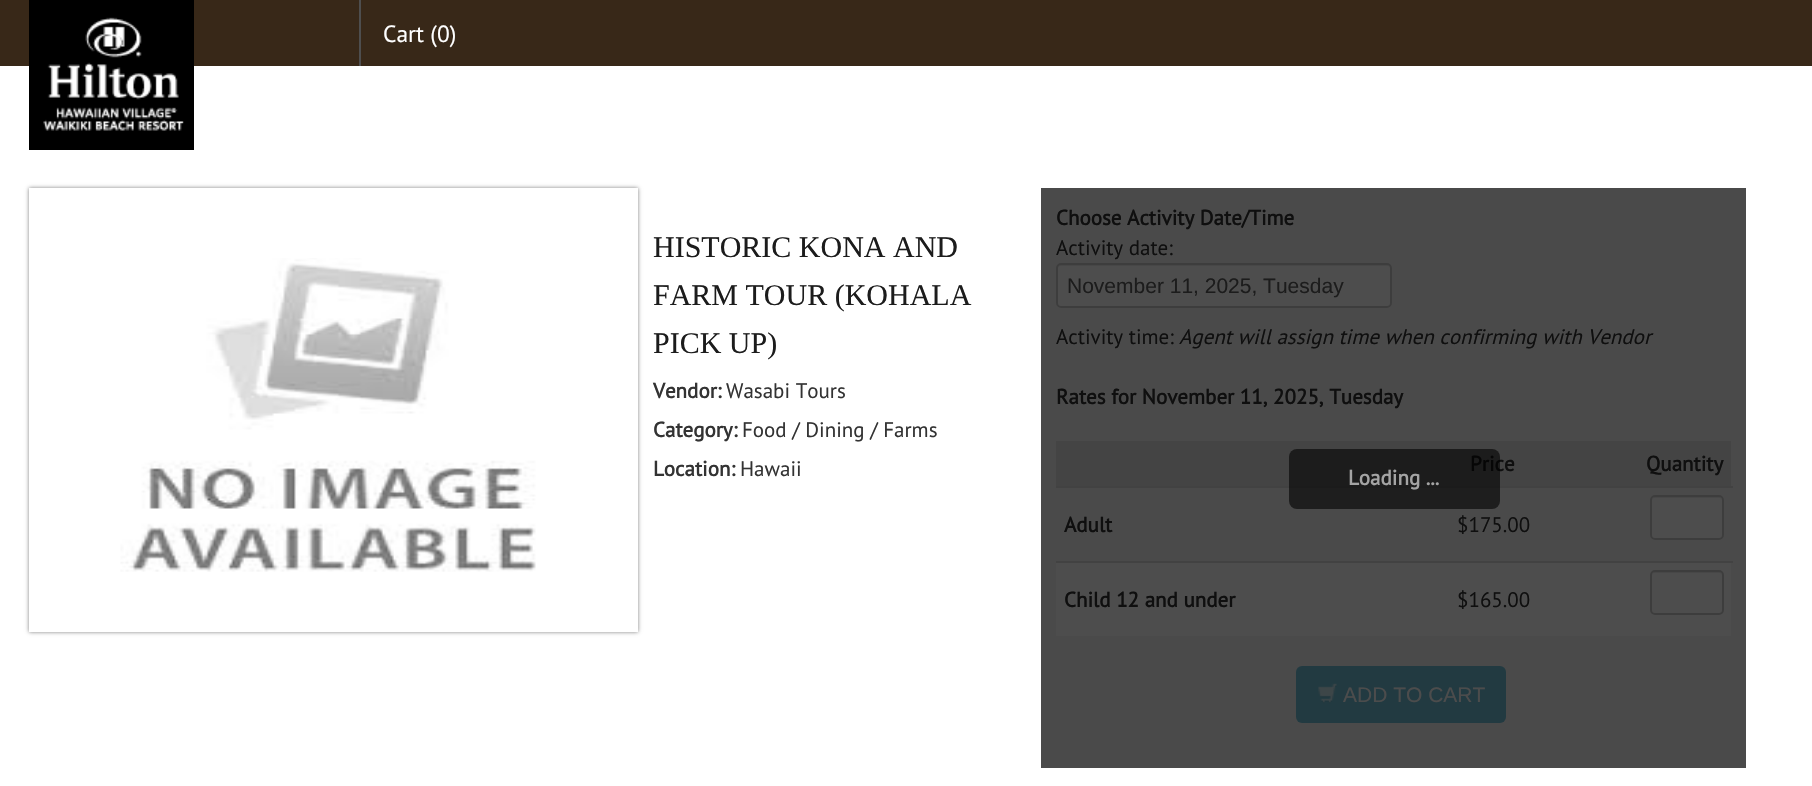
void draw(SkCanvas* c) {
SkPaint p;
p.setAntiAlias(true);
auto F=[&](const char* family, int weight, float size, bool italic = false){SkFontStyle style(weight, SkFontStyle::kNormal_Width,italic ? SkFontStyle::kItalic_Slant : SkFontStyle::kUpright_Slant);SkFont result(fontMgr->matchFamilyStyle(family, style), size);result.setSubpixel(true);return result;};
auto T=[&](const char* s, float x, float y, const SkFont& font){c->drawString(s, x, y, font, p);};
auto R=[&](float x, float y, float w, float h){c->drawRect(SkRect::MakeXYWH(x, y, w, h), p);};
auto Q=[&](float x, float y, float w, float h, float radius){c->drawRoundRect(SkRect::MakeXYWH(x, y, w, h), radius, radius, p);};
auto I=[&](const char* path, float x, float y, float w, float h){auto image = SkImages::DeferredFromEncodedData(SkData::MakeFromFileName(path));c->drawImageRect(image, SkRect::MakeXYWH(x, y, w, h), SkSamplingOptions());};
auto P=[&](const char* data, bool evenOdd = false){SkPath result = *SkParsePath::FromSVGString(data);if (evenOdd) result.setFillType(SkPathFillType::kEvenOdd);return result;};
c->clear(0xffffffff);
p.setColor(0xff382818);
R(0,0,1812,66);
p.setColor(0xff000000);
R(29,0,165,150);
I("1.png",43,17,141,114);
p.setColor(0xff4e4e4e);
R(359,0,2,66);
auto f1 = F("PT Sans",400,23.5);
p.setColor(0xffffffff);
T("Cart (0)",383,42,f1);
p.setColor(0x80000000);
p.setMaskFilter(SkMaskFilter::MakeBlur(kNormal_SkBlurStyle, 2));
c->drawRect(SkRect::MakeXYWH(29,188,609,444),p);
p.setMaskFilter(nullptr);
p.setColor(0xffffffff);
R(29,188,609,444);
I("2.png",120,258,416,314);
auto f2 = F("Liberation Serif",400,30);
p.setColor(0xff1c1c1c);
T("HISTORIC KONA AND",653,257,f2);
T("FARM TOUR (KOHALA",653,305,f2);
T("PICK UP)",653,353,f2);
auto f3 = F("PT Sans",700,21);
p.setColor(0xff333333);
T("Vendor:",653,398,f3);
auto f4 = F("PT Sans",400,21);
T("Wasabi Tours",726,398,f4);
T("Category:",653,437,f3);
T("Food / Dining / Farms",742,437,f4);
T("Location:",653,476,f3);
T("Hawaii",740,476,f4);
p.setColor(0xff4a4a4a);
R(1041,188,705,580);
p.setColor(0xff0f0f0f);
T("Choose Activity Date/Time",1056,225,f3);
T("Activity date:",1056,255,f4);
p.setColor(0xff4d4d4d);
Q(1056,263,336,45,5);
p.setColor(0xff474747);
c->drawPath(P("M1060 266h328c1 0 2 1 2 2v37c1 0 1-1 1-2v-36c0-2-1-3-3-3h-327c-2 0-3 1-3 3v1c0-1 1-2 2-2z"),p);
p.setStroke(true);
p.setStrokeWidth(2);
p.setColor(0xff3d3d3d);
c->drawRoundRect(SkRect::MakeXYWH(1057,264,334,43),4,4,p);
auto f5 = F("Liberation Sans",400,21);
p.setStroke(false);
p.setColor(0xff1c1c1c);
T("November 11, 2025, Tuesday",1067,293,f5);
p.setColor(0xff0f0f0f);
T("Activity time:",1056,344,f4);
auto f6 = F("PT Sans",400,21,true);
T("Agent will assign time when confirming with Vendor",1179,344,f6);
T("Rates for November 11, 2025, Tuesday",1056,404,f3);
p.setColor(0xff444444);
R(1056,441,675,45);
p.setColor(0xff0f0f0f);
T("Price",1470,471,f3);
T("Quantity",1646,471,f3);
p.setColor(0xff424242);
R(1056,486,677,2);
p.setColor(0xff4d4d4d);
Q(1650,495,74,45,5);
p.setColor(0xff474747);
c->drawPath(P("M1654 498h65c2 0 3 1 3 3c0-7-9-4-14-4h-42c-5 0-14-3-14 4c0-2 1-3 2-3z"),p);
p.setStroke(true);
p.setColor(0xff3d3d3d);
c->drawRoundRect(SkRect::MakeXYWH(1651,496,72,43),4,4,p);
p.setStroke(false);
p.setColor(0xff0f0f0f);
T("Adult",1064,532,f3);
T("$175.00",1457,532,f4);
p.setColor(0xff4d4d4d);
R(1056,563,675,73);
p.setColor(0xff424242);
R(1056,561,677,2);
p.setColor(0xff474747);
c->drawPath(P("M1654 573h65c2 0 3 1 3 3c0-7-9-4-14-4h-42c-5 0-14-3-14 4c0-2 1-3 2-3z"),p);
p.setStroke(true);
p.setColor(0xff3d3d3d);
c->drawRoundRect(SkRect::MakeXYWH(1651,571,72,43),4,4,p);
p.setStroke(false);
p.setColor(0xff0f0f0f);
T("Child 12 and under",1064,607,f3);
T("$165.00",1457,607,f4);
p.setColor(0xff223a41);
Q(1296,666,210,57,6);
I("3.png",1318,683,19,21);
p.setColor(0xff4c4c4c);
T("ADD TO CART",1343,702,f5);
p.setColor(0x99000000);
Q(1289,449,211,60,8);
p.setColor(0xffa4a4a4);
T("Loading ...",1348,485,f3);
}
